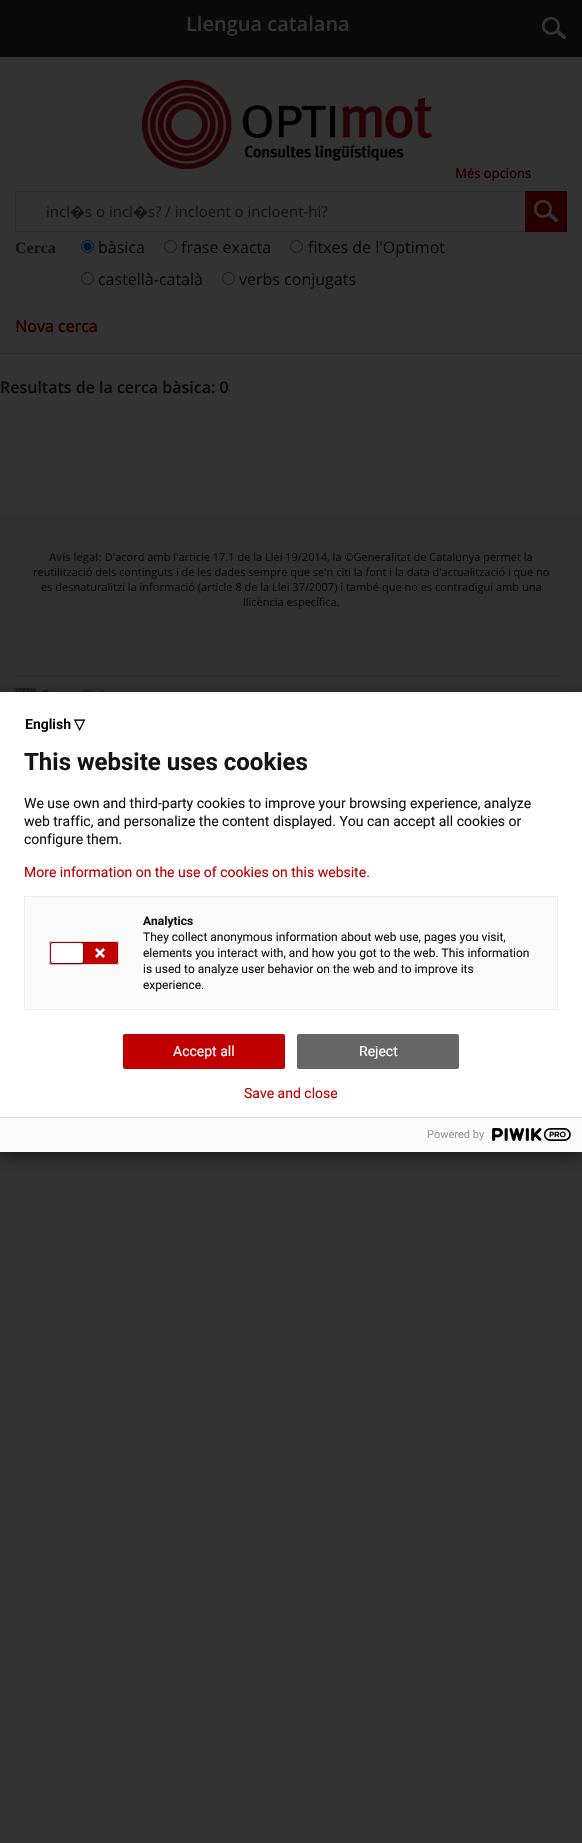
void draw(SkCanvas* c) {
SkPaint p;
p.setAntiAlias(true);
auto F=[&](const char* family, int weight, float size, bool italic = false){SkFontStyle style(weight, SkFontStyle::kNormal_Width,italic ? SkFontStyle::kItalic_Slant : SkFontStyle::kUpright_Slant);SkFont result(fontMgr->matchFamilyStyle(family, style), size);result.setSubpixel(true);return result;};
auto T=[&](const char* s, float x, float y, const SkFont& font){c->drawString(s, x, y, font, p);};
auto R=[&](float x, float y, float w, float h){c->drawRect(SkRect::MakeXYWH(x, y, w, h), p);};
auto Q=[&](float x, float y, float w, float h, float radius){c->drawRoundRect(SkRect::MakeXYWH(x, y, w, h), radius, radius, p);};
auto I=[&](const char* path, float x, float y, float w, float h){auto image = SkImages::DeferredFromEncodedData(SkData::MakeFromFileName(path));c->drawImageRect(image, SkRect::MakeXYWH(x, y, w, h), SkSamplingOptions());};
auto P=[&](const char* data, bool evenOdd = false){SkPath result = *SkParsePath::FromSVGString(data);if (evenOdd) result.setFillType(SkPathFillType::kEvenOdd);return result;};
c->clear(0xff333333);
p.setColor(0xff0a0a0a);
R(0,0,582,57);
auto f1 = F("Open Sans",600,20);
p.setColor(0xff333333);
T("Llengua catalana",186,31,f1);
I("1.png",542,17,24,22);
p.setColor(0xff2c2c2c);
R(0,353,582,1);
auto f2 = F("Open Sans",700,13);
p.setColor(0xff260000);
T("Més opcions",455,178,f2);
I("2.png",142,80,290,89);
p.setStroke(true);
p.setStrokeWidth(1);
p.setColor(0xff2c2c2c);
c->drawRect(SkRect::MakeXYWH(15.5,191.5,551,40),p);
auto f3 = F("Open Sans",400,15);
p.setStroke(false);
p.setColor(0xff141414);
T("incl�s o incl�s? / incloent o incloent-hi?",46,217,f3);
p.setColor(0xff260000);
R(525,191,42,41);
I("3.png",534,200,24,22);
auto f4 = F("Liberation Serif",700,16);
p.setColor(0xff141414);
T("Cerca",15,253,f4);
p.setStroke(true);
p.setColor(0xff001733);
c->drawCircle(87.5,246.5,6,p);
p.setStroke(false);
c->drawCircle(87.5,246.5,4,p);
auto f5 = F("Open Sans",400,16);
p.setColor(0xff0a0a0a);
T("bàsica",98,253,f5);
p.setStroke(true);
p.setColor(0xff181818);
c->drawCircle(170.5,246.5,6,p);
p.setStroke(false);
p.setColor(0xff0a0a0a);
T("frase exacta",181,253,f5);
p.setStroke(true);
p.setColor(0xff181818);
c->drawCircle(296.5,246.5,6,p);
p.setStroke(false);
p.setColor(0xff0a0a0a);
T("fitxes de l'Optimot",308,253,f5);
p.setStroke(true);
p.setColor(0xff181818);
c->drawCircle(87.5,278.5,6,p);
p.setStroke(false);
p.setColor(0xff0a0a0a);
T("castellà-català",98,285,f5);
p.setStroke(true);
p.setColor(0xff181818);
c->drawCircle(228.5,278.5,6,p);
p.setStroke(false);
p.setColor(0xff0a0a0a);
T("verbs conjugats",239,285,f5);
auto f6 = F("Open Sans",700,16);
p.setColor(0xff260000);
T("Nova cerca",15,332,f6);
auto f7 = F("Open Sans",600,16);
p.setColor(0xff0a0a0a);
T("Resultats de la cerca bàsica: 0",0,393,f7);
p.setColor(0xff303030);
R(0,513,582,179);
auto f8 = F("Open Sans",600,11);
p.setColor(0xff141414);
T("Avís legal",49,561,f8);
auto f9 = F("Open Sans",400,11);
p.setColor(0xff0a0a0a);
T(": D'acord amb l'article 17.1 de la Llei 19/2014, la ©Generalitat de Catalunya permet la",99,561,f9);
T("reutilització dels continguts i de les dades sempre que se'n citi la font i la data d'actualització i que no",33,576,f9);
T("es desnaturalitzi la informació (article 8 de la Llei 37/2007) i també que no es contradigui amb una",41,591,f9);
T("llicència específica.",243,606,f9);
p.setColor(0xff2c2c2c);
R(15,675,552,1);
I("4.png",15,688,88,4);
p.setColor(0x80000000);
p.setMaskFilter(SkMaskFilter::MakeBlur(kNormal_SkBlurStyle, 7.5));
c->drawRect(SkRect::MakeXYWH(0,697,582,460),p);
p.setMaskFilter(nullptr);
p.setColor(0xffffffff);
R(0,692,582,425);
auto f10 = F("Roboto",600,14);
p.setColor(0xff000000);
T("English",25,729,f10);
auto f11 = F("DejaVu Sans",700,14);
T("▽",74,729,f11);
auto f12 = F("Roboto",700,24);
p.setColor(0xff141414);
T("This website uses cookies",24,770,f12);
auto f13 = F("Roboto",400,14);
T("We use own and third-party cookies to improve your browsing experience, analyze",24,808,f13);
T("web traffic, and personalize the content displayed. You can accept all cookies or",24,826,f13);
T("configure them.",24,844,f13);
p.setColor(0xffc00000);
T("More information on the use of cookies on this website.",24,877,f13);
p.setColor(0xfffafafa);
c->drawRect(SkRect::MakeXYWH(24.5,896.5,533,113),p);
p.setStroke(true);
p.setColor(0xffeeeeee);
c->drawRect(SkRect::MakeXYWH(24.5,896.5,533,113),p);
p.setStroke(false);
p.setColor(0xffc00000);
Q(49,941,70,24,3);
p.setColor(0xff9a0000);
c->drawPath(P("M52 943h65l1 2c0-6-9-3-13-3h-42c-4 0-13-3-13 3c0-1 1-2 2-2z"),p);
p.setStroke(true);
p.setColor(0xffdddddd);
c->drawRoundRect(SkRect::MakeXYWH(49.5,941.5,69,23),2.5,2.5,p);
p.setStroke(false);
p.setColor(0x80000000);
p.setMaskFilter(SkMaskFilter::MakeBlur(kNormal_SkBlurStyle, 1));
c->drawRoundRect(SkRect::MakeXYWH(51,944,32,20),2,2,p);
p.setMaskFilter(nullptr);
p.setColor(0xffffffff);
Q(51,943,32,20,2);
I("5.png",95,948,10,10);
auto f14 = F("Roboto",700,12);
p.setColor(0xff141414);
T("Analytics",143,925,f14);
auto f15 = F("Roboto",400,12);
T("They collect anonymous information about web use, pages you visit,",143,941,f15);
T("elements you interact with, and how you got to the web. This information",143,957,f15);
T("is used to analyze user behavior on the web and to improve its",143,973,f15);
T("experience.",143,989,f15);
p.setColor(0xffc00000);
Q(123,1034,162,35,2);
p.setColor(0xffffffff);
T("Accept all",173,1056,f13);
p.setColor(0xff666666);
Q(297,1034,162,35,2);
p.setColor(0xffffffff);
T("Reject",359,1056,f13);
p.setColor(0xffc00000);
T("Save and close",244,1098,f13);
p.setColor(0xfffafafa);
R(0,1118,582,34);
p.setColor(0xffdddddd);
R(0,1117,582,1);
auto f16 = F("Roboto",400,11);
p.setColor(0xff999999);
T("Powered by",427,1138,f16);
I("6.png",492,1128,79,13);
}
